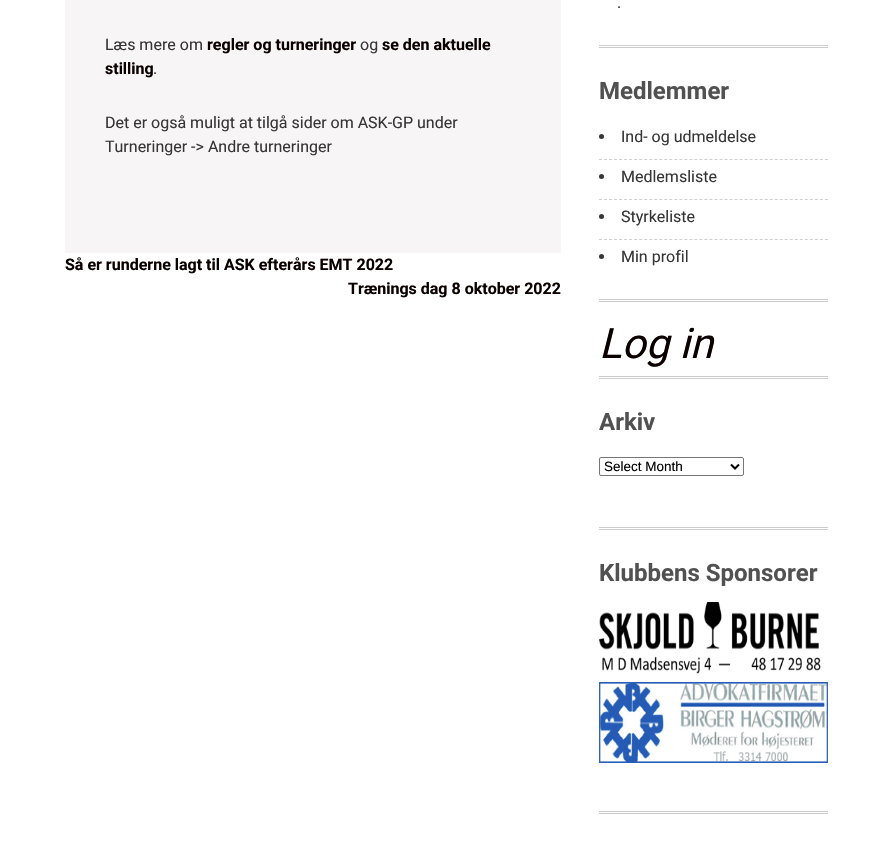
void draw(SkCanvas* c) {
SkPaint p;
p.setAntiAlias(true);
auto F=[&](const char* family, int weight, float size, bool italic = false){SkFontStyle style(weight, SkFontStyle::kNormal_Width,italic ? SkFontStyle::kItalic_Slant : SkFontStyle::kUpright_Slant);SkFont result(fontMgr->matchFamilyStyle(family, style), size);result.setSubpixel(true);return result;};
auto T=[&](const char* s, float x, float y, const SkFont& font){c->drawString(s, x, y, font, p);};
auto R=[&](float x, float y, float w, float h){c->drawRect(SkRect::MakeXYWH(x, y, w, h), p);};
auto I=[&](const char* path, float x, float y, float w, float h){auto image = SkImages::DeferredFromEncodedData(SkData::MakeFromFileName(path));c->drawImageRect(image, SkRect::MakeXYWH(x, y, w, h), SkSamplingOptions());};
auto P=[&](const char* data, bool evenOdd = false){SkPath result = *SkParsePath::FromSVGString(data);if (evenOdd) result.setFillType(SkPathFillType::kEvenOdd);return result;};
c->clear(0xffffffff);
p.setColor(0xfff7f5f5);
R(65,0,496,253);
auto f1 = F("Roboto",400,16);
p.setColor(0xff363636);
T("Læs mere om",105,50,f1);
auto f2 = F("Roboto",700,16);
p.setColor(0xff0a0000);
T("regler og turneringer",207,50,f2);
p.setColor(0xff363636);
T("og",360,50,f1);
p.setColor(0xff0a0000);
T("se den aktuelle",382,50,f2);
T("stilling",105,74,f2);
p.setColor(0xff363636);
T(".",153,74,f1);
T("Det er også muligt at tilgå sider om ASK-GP under",105,128,f1);
T("Turneringer -> Andre turneringer",105,152,f1);
p.setColor(0xff0a0000);
T("Så er runderne lagt til ASK efterårs EMT 2022",65,270,f2);
T("Trænings dag 8 oktober 2022",348,294,f2);
p.setColor(0xffcccccc);
R(599,45,229,1);
R(599,47,229,1);
p.setColor(0xff363636);
T(".",617,8,f1);
p.setColor(0xffcccccc);
R(599,299,229,1);
R(599,301,229,1);
auto f3 = F("Roboto",700,24);
p.setColor(0xff515151);
T("Medlemmer",599,99,f3);
p.setStroke(true);
p.setStrokeWidth(1);
p.setColor(0xffd0cfcf);
p.setPathEffect(SkDashPathEffect::Make({{3,2.02f}}, 0));
c->drawPath(P("M599 159.5h229"),p);
p.setPathEffect(nullptr);
p.setStroke(false);
p.setColor(0xff363636);
c->drawCircle(601.5,136.5,2.5,p);
T("Ind- og udmeldelse",621,142,f1);
p.setStroke(true);
p.setColor(0xffd0cfcf);
p.setPathEffect(SkDashPathEffect::Make({{3,2.02f}}, 0));
c->drawPath(P("M599 199.5h229"),p);
p.setPathEffect(nullptr);
p.setStroke(false);
p.setColor(0xff363636);
c->drawCircle(601.5,176.5,2.5,p);
T("Medlemsliste",621,182,f1);
p.setStroke(true);
p.setColor(0xffd0cfcf);
p.setPathEffect(SkDashPathEffect::Make({{3,2.02f}}, 0));
c->drawPath(P("M599 239.5h229"),p);
p.setPathEffect(nullptr);
p.setStroke(false);
p.setColor(0xff363636);
c->drawCircle(601.5,216.5,2.5,p);
T("Styrkeliste",621,222,f1);
c->drawCircle(601.5,256.5,2.5,p);
T("Min profil",621,262,f1);
p.setColor(0xffcccccc);
R(599,376,229,1);
R(599,378,229,1);
auto f4 = F("Roboto",400,42,true);
p.setColor(0xff0a0000);
T("Log in",599,358,f4);
p.setColor(0xffcccccc);
R(599,527,229,1);
R(599,529,229,1);
p.setColor(0xff515151);
T("Arkiv",599,430,f3);
p.setStroke(true);
p.setColor(0xff767676);
c->drawRoundRect(SkRect::MakeXYWH(599.5,457.5,144,18),1.5,1.5,p);
p.setStrokeWidth(2);
p.setColor(0xff000000);
c->drawPath(P("M731 464.5l4 4l4-4"),p);
auto f5 = F("Liberation Sans",400,13.5);
p.setStroke(false);
T("Select Month",604,471,f5);
p.setColor(0xffcccccc);
R(599,811,229,1);
R(599,813,229,1);
p.setColor(0xff515151);
T("Klubbens Sponsorer",599,581,f3);
I("1.png",599,602,222,72);
I("2.png",599,682,229,81);
}
